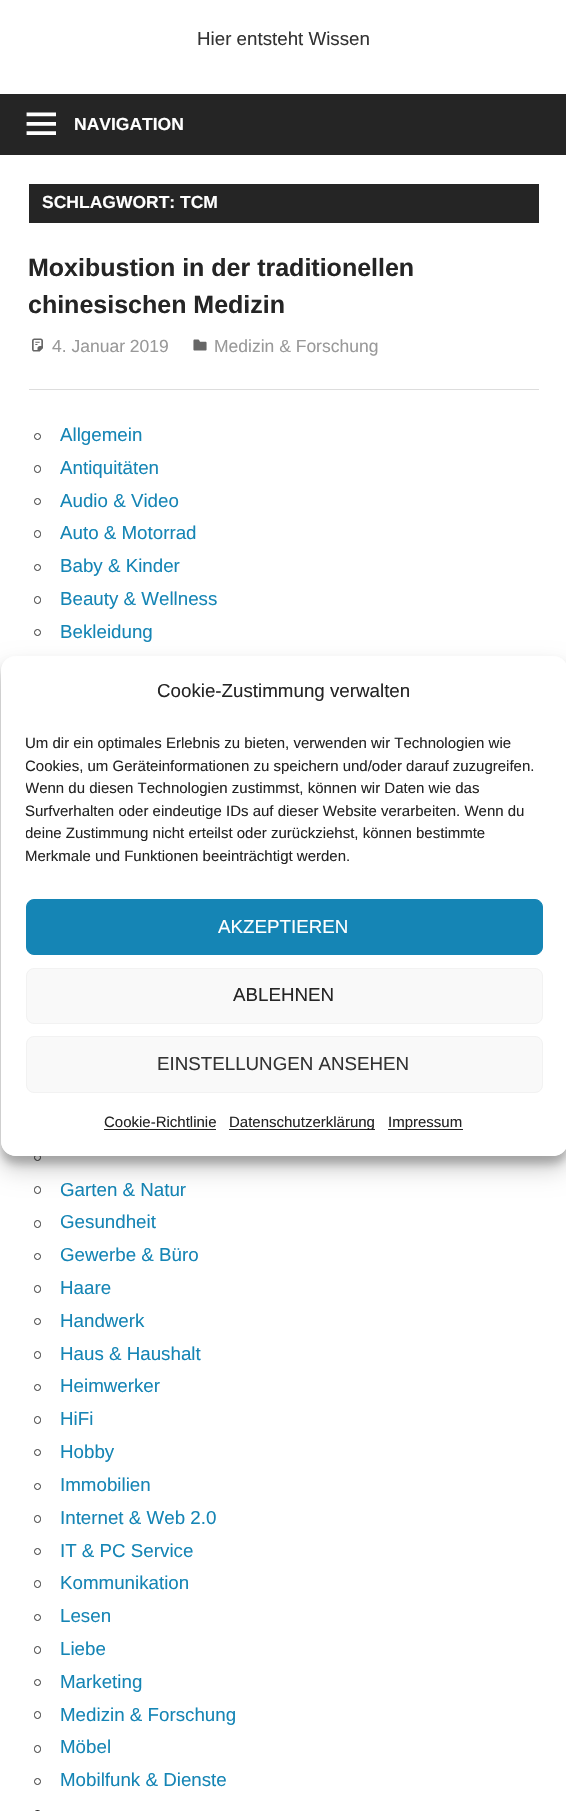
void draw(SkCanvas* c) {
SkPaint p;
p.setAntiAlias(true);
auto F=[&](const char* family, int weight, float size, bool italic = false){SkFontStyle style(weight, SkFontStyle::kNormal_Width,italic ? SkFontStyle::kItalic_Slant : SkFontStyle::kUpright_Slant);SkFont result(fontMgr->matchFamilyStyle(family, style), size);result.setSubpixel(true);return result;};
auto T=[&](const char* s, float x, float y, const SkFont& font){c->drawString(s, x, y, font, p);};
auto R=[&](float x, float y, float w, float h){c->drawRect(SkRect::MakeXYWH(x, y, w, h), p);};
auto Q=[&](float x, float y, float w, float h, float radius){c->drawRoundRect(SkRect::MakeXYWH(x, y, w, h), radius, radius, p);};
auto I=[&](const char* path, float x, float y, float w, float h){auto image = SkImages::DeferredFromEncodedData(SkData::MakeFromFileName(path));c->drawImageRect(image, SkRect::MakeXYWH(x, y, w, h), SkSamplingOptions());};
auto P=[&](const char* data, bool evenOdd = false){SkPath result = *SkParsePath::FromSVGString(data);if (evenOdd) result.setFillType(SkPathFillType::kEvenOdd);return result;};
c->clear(0xffffffff);
auto f1 = F("Liberation Sans",400,18.75);
p.setColor(0xff333333);
T("Hier entsteht Wissen",197,45,f1);
p.setColor(0xff252525);
R(0,94,566,61);
I("1.png",26,112,30,23);
auto f2 = F("Liberation Sans",700,17.5);
p.setColor(0xffffffff);
T("NAVIGATION",74,130,f2);
p.setColor(0xff252525);
R(29,184,510,39);
p.setColor(0xffffffff);
T("SCHLAGWORT: TCM",42,208,f2);
p.setColor(0xffdddddd);
R(29,389,510,1);
auto f3 = F("Liberation Sans",700,25);
p.setColor(0xff252525);
T("Moxibustion in der traditionellen",28,276,f3);
T("chinesischen Medizin",28,313,f3);
I("2.png",32,338,11,14);
auto f4 = F("Liberation Sans",400,17.5);
p.setColor(0xff999999);
T("4. Januar 2019",52,352,f4);
I("3.png",193,339,14,12);
T("Medizin & Forschung",214,352,f4);
p.setStroke(true);
p.setStrokeWidth(1);
p.setColor(0xff333333);
c->drawCircle(37.5,436.5,3,p);
p.setStroke(false);
p.setColor(0xff1585b5);
T("Allgemein",60,441,f1);
p.setStroke(true);
p.setColor(0xff333333);
c->drawRoundRect(SkRect::MakeXYWH(34.5,465.5,6,7),3,3,p);
p.setStroke(false);
p.setColor(0xff1585b5);
T("Antiquitäten",60,474,f1);
p.setStroke(true);
p.setColor(0xff333333);
c->drawCircle(37.5,501.5,3,p);
p.setStroke(false);
p.setColor(0xff1585b5);
T("Audio & Video",60,507,f1);
p.setStroke(true);
p.setColor(0xff333333);
c->drawRoundRect(SkRect::MakeXYWH(34.5,530.5,6,7),3,3,p);
p.setStroke(false);
p.setColor(0xff1585b5);
T("Auto & Motorrad",60,539,f1);
p.setStroke(true);
p.setColor(0xff333333);
c->drawCircle(37.5,567.5,3,p);
p.setStroke(false);
p.setColor(0xff1585b5);
T("Baby & Kinder",60,572,f1);
p.setStroke(true);
p.setColor(0xff333333);
c->drawRoundRect(SkRect::MakeXYWH(34.5,596.5,6,7),3,3,p);
p.setStroke(false);
p.setColor(0xff1585b5);
T("Beauty & Wellness",60,605,f1);
p.setStroke(true);
p.setColor(0xff333333);
c->drawCircle(37.5,632.5,3,p);
p.setStroke(false);
p.setColor(0xff1585b5);
T("Bekleidung",60,638,f1);
p.setStroke(true);
p.setColor(0xff333333);
c->drawCircle(37.5,1157.5,3,p);
c->drawRoundRect(SkRect::MakeXYWH(34.5,1186.5,6,7),3,3,p);
p.setStroke(false);
p.setColor(0xff1585b5);
T("Garten & Natur",60,1196,f1);
p.setStroke(true);
p.setColor(0xff333333);
c->drawRoundRect(SkRect::MakeXYWH(34.5,1220.5,6,7),3,3,p);
p.setStroke(false);
p.setColor(0xff1585b5);
T("Gesundheit",60,1228,f1);
p.setStroke(true);
p.setColor(0xff333333);
c->drawCircle(37.5,1256.5,3,p);
p.setStroke(false);
p.setColor(0xff1585b5);
T("Gewerbe & Büro",60,1261,f1);
p.setStroke(true);
p.setColor(0xff333333);
c->drawRoundRect(SkRect::MakeXYWH(34.5,1285.5,6,7),3,3,p);
p.setStroke(false);
p.setColor(0xff1585b5);
T("Haare",60,1294,f1);
p.setStroke(true);
p.setColor(0xff333333);
c->drawCircle(37.5,1321.5,3,p);
p.setStroke(false);
p.setColor(0xff1585b5);
T("Handwerk",60,1327,f1);
p.setStroke(true);
p.setColor(0xff333333);
c->drawRoundRect(SkRect::MakeXYWH(34.5,1351.5,6,7),3,3,p);
p.setStroke(false);
p.setColor(0xff1585b5);
T("Haus & Haushalt",60,1360,f1);
p.setStroke(true);
p.setColor(0xff333333);
c->drawCircle(37.5,1387.5,3,p);
p.setStroke(false);
p.setColor(0xff1585b5);
T("Heimwerker",60,1392,f1);
p.setStroke(true);
p.setColor(0xff333333);
c->drawRoundRect(SkRect::MakeXYWH(34.5,1416.5,6,7),3,3,p);
p.setStroke(false);
p.setColor(0xff1585b5);
T("HiFi",60,1425,f1);
p.setStroke(true);
p.setColor(0xff333333);
c->drawCircle(37.5,1452.5,3,p);
p.setStroke(false);
p.setColor(0xff1585b5);
T("Hobby",60,1458,f1);
p.setStroke(true);
p.setColor(0xff333333);
c->drawCircle(37.5,1486.5,3,p);
p.setStroke(false);
p.setColor(0xff1585b5);
T("Immobilien",60,1491,f1);
p.setStroke(true);
p.setColor(0xff333333);
c->drawRoundRect(SkRect::MakeXYWH(34.5,1515.5,6,7),3,3,p);
p.setStroke(false);
p.setColor(0xff1585b5);
T("Internet & Web 2.0",60,1524,f1);
p.setStroke(true);
p.setColor(0xff333333);
c->drawCircle(37.5,1551.5,3,p);
p.setStroke(false);
p.setColor(0xff1585b5);
T("IT & PC Service",60,1557,f1);
p.setStroke(true);
p.setColor(0xff333333);
c->drawRoundRect(SkRect::MakeXYWH(34.5,1580.5,6,7),3,3,p);
p.setStroke(false);
p.setColor(0xff1585b5);
T("Kommunikation",60,1589,f1);
p.setStroke(true);
p.setColor(0xff333333);
c->drawCircle(37.5,1617.5,3,p);
p.setStroke(false);
p.setColor(0xff1585b5);
T("Lesen",60,1622,f1);
p.setStroke(true);
p.setColor(0xff333333);
c->drawRoundRect(SkRect::MakeXYWH(34.5,1646.5,6,7),3,3,p);
p.setStroke(false);
p.setColor(0xff1585b5);
T("Liebe",60,1655,f1);
p.setStroke(true);
p.setColor(0xff333333);
c->drawCircle(37.5,1682.5,3,p);
p.setStroke(false);
p.setColor(0xff1585b5);
T("Marketing",60,1688,f1);
p.setStroke(true);
p.setColor(0xff333333);
c->drawRoundRect(SkRect::MakeXYWH(34.5,1711.5,6,7),3,3,p);
p.setStroke(false);
p.setColor(0xff1585b5);
T("Medizin & Forschung",60,1721,f1);
p.setStroke(true);
p.setColor(0xff333333);
c->drawRoundRect(SkRect::MakeXYWH(34.5,1745.5,6,7),3,3,p);
p.setStroke(false);
p.setColor(0xff1585b5);
T("Möbel",60,1753,f1);
p.setStroke(true);
p.setColor(0xff333333);
c->drawCircle(37.5,1781.5,3,p);
p.setStroke(false);
p.setColor(0xff1585b5);
T("Mobilfunk & Dienste",60,1786,f1);
p.setStroke(true);
p.setColor(0xff333333);
c->drawRoundRect(SkRect::MakeXYWH(34.5,1810.5,6,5),3,3,p);
c->save();
c->clipPath(P("M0 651h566v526h-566zm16 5h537c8.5 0 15 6.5 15 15v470c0 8.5-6.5 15-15 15h-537c-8.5 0-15-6.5-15-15v-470c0-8.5 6.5-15 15-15z",true),true);
p.setStroke(false);
p.setColor(0x3b000000);
p.setMaskFilter(SkMaskFilter::MakeBlur(kNormal_SkBlurStyle, 4));
c->drawRoundRect(SkRect::MakeXYWH(1,664,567,500),15,15,p);
p.setMaskFilter(nullptr);
c->restore();
c->save();
c->clipPath(P("M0 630h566v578h-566zm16 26h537c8.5 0 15 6.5 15 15v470c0 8.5-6.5 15-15 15h-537c-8.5 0-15-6.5-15-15v-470c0-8.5 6.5-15 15-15z",true),true);
p.setColor(0x30000000);
p.setMaskFilter(SkMaskFilter::MakeBlur(kNormal_SkBlurStyle, 12.5));
c->drawRoundRect(SkRect::MakeXYWH(1,669,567,500),15,15,p);
p.setMaskFilter(nullptr);
c->restore();
p.setColor(0xffffffff);
Q(1,656,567,500,15);
p.setColor(0xff252525);
T("Cookie-Zustimmung verwalten",157,697,f1);
auto f5 = F("Liberation Sans",400,15);
T("Um dir ein optimales Erlebnis zu bieten, verwenden wir Technologien wie",25,748,f5);
c->save();
c->clipRect(SkRect::MakeXYWH(26,733,517,141));
T("Cookies, um Geräteinformationen zu speichern und/oder darauf zuzugreifen.",25,771,f5);
T("Wenn du diesen Technologien zustimmst, können wir Daten wie das",25,793,f5);
c->restore();
T("Surfverhalten oder eindeutige IDs auf dieser Website verarbeiten. Wenn du",25,816,f5);
c->save();
c->clipRect(SkRect::MakeXYWH(26,733,517,141));
T("deine Zustimmung nicht erteilst oder zurückziehst, können bestimmte",25,838,f5);
c->restore();
T("Merkmale und Funktionen beeinträchtigt werden.",25,861,f5);
p.setColor(0xff1585b5);
c->drawRoundRect(SkRect::MakeXYWH(26.5,899.5,516,55),7.5,7.5,p);
p.setStroke(true);
c->drawRoundRect(SkRect::MakeXYWH(26.5,899.5,516,55),7.5,7.5,p);
p.setStroke(false);
p.setColor(0xffffffff);
T("AKZEPTIEREN",218,933,f1);
p.setColor(0xfff9f9f9);
c->drawRoundRect(SkRect::MakeXYWH(26.5,968.5,516,55),7.5,7.5,p);
p.setStroke(true);
p.setColor(0xfff2f2f2);
c->drawRoundRect(SkRect::MakeXYWH(26.5,968.5,516,55),7.5,7.5,p);
p.setStroke(false);
p.setColor(0xff252525);
T("ABLEHNEN",233,1001,f1);
p.setColor(0xfff9f9f9);
c->drawRoundRect(SkRect::MakeXYWH(26.5,1036.5,516,56),7.5,7.5,p);
p.setStroke(true);
p.setColor(0xfff2f2f2);
c->drawRoundRect(SkRect::MakeXYWH(26.5,1036.5,516,56),7.5,7.5,p);
p.setStroke(false);
p.setColor(0xff333333);
T("EINSTELLUNGEN ANSEHEN",157,1070,f1);
p.setColor(0xff252525);
T("Cookie-Richtlinie",104,1127,f5);
p.setColor(0xff222222);
R(104,1129,112,1);
R(229,1129,146,1);
p.setColor(0xff252525);
T("Datenschutzerklärung",229,1127,f5);
p.setColor(0xff222222);
R(388,1129,75,1);
p.setColor(0xff252525);
T("Impressum",388,1127,f5);
}
